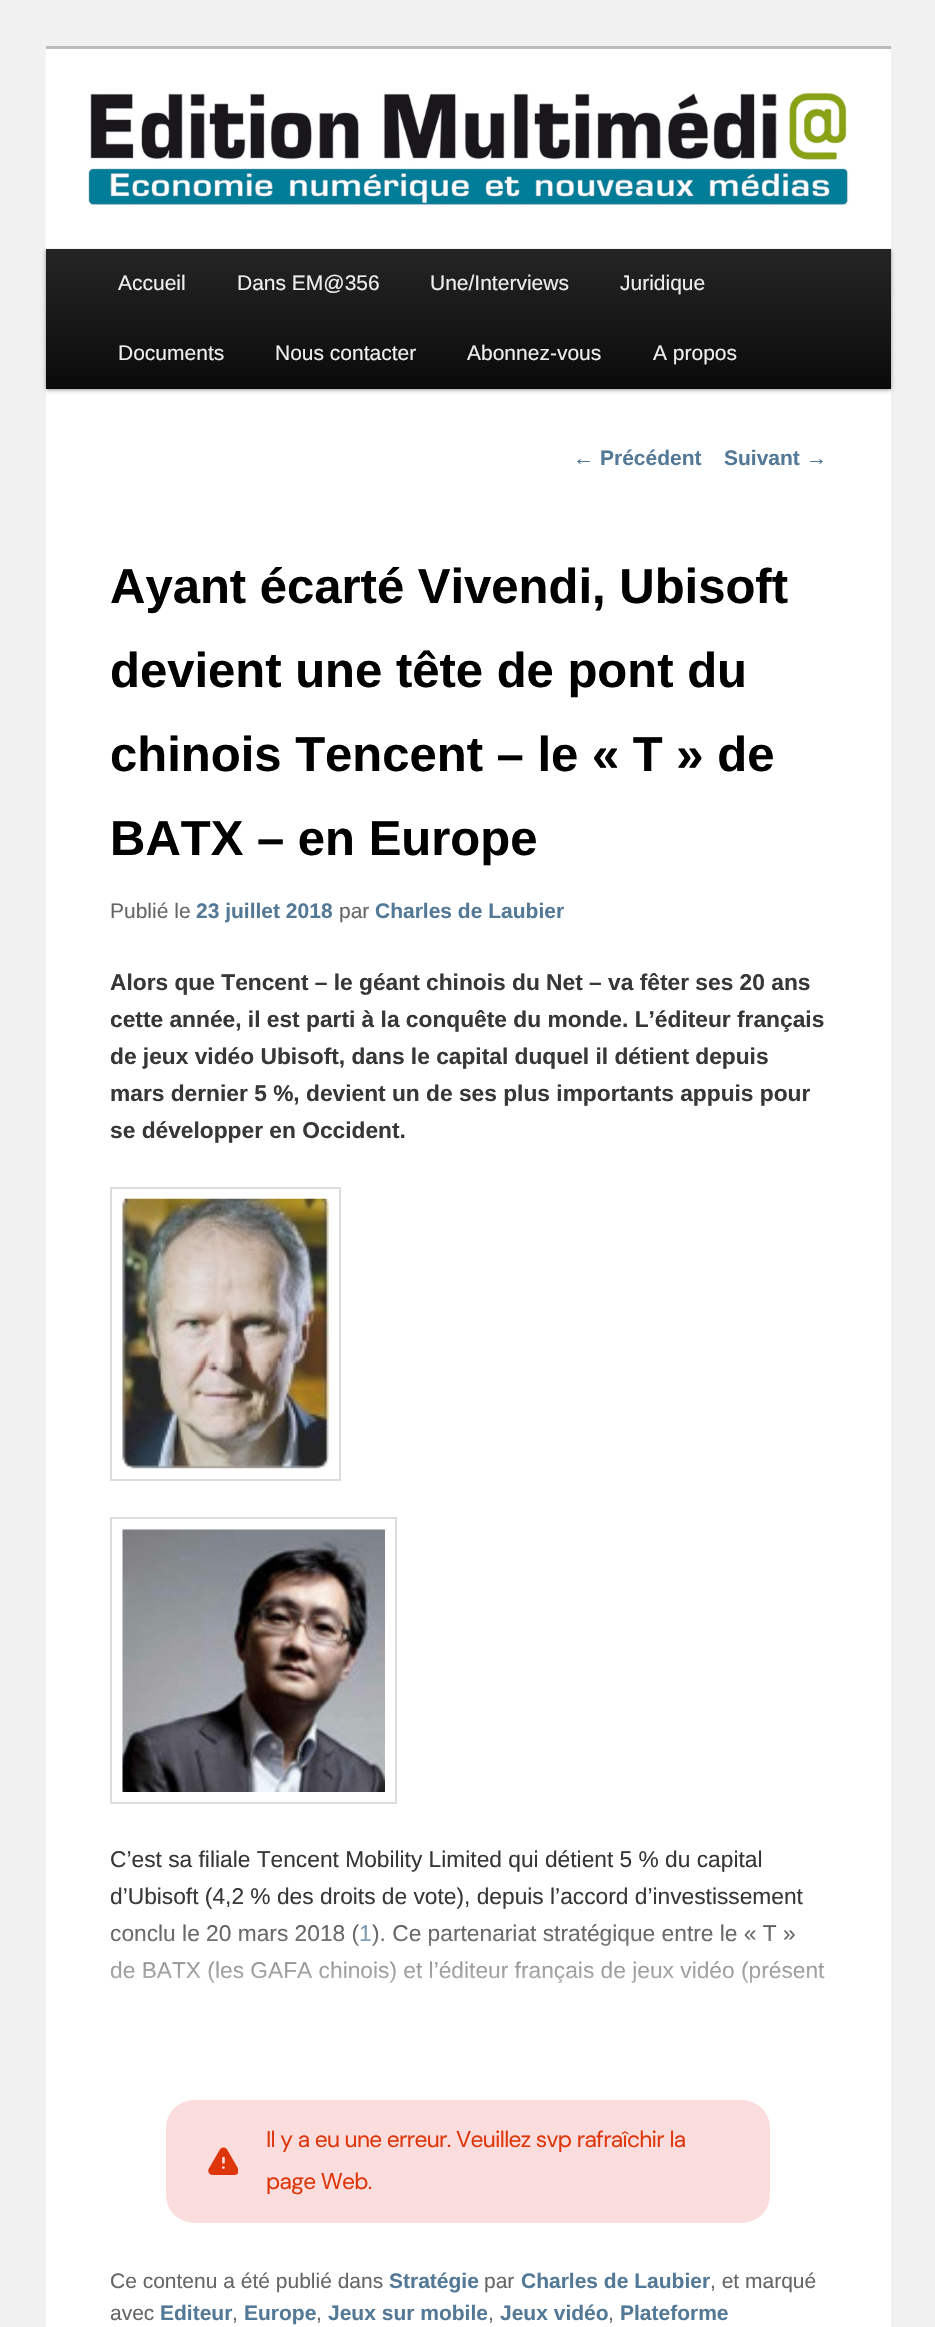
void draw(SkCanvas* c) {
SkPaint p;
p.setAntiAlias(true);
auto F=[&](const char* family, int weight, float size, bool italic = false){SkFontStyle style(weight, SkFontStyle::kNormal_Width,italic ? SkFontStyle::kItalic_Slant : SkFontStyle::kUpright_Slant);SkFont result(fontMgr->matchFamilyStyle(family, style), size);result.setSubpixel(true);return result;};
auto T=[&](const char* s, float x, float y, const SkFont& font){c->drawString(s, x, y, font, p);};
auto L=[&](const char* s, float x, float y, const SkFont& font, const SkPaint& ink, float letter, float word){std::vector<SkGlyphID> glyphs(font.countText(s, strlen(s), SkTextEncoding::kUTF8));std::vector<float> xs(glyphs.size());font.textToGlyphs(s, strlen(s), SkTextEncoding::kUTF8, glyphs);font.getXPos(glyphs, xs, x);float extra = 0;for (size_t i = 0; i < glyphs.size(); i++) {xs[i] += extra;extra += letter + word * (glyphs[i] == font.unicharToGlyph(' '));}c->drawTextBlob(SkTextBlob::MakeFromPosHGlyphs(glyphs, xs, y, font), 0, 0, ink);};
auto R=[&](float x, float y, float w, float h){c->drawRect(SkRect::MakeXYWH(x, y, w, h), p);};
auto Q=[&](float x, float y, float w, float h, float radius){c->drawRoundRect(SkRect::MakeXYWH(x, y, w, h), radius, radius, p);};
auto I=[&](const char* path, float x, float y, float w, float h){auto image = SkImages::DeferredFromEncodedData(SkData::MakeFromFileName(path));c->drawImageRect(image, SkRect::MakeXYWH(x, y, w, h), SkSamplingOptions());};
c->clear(0xfff1f1f1);
p.setColor(0xffffffff);
R(46,50,845,2277);
p.setColor(0xffbbbbbb);
R(46,46,845,4);
p.setColor(0x66000000);
p.setMaskFilter(SkMaskFilter::MakeBlur(kNormal_SkBlurStyle, 2));
c->drawRect(SkRect::MakeXYWH(46,250,845,140),p);
p.setMaskFilter(nullptr);
I("1.png",45,49,846,200);
{
const SkColor colors[] = {0xff252525,0xff0a0a0a};
const float stops[] = {0,1};
const SkPoint ends[] = {{468,248}, {468,389}};
p.setShader(SkGradientShader::MakeLinear(ends, colors, stops, 2, SkTileMode::kClamp));
p.setAlpha(255);
}
R(46,249,845,140);
auto f1 = F("Liberation Sans",400,21);
p.setShader(nullptr);
p.setColor(0xffeeeeee);
T("Accueil",118,290,f1);
T("Dans EM@356",237,290,f1);
T("Une/Interviews",430,290,f1);
T("Juridique",620,290,f1);
T("Documents",118,360,f1);
T("Nous contacter",275,360,f1);
T("Abonnez-vous",467,360,f1);
T("A propos",653,360,f1);
p.setColor(0xff537996);
T("←",573,465,f1);
auto f2 = F("Liberation Sans",700,21);
T("Précédent",600,465,f2);
T("Suivant",724,465,f2);
T("→",806,465,f1);
auto f3 = F("Liberation Sans",700,49);
p.setColor(0xff000000);
T("Ayant écarté Vivendi, Ubisoft",110,603,f3);
T("devient une tête de pont du",110,687,f3);
T("chinois Tencent – le « T » de",110,771,f3);
T("BATX – en Europe",110,855,f3);
p.setColor(0xff666666);
T("Publié le",110,918,f1);
p.setColor(0xff537996);
T("23 juillet 2018",196,918,f2);
p.setColor(0xff666666);
T("par",339,918,f1);
p.setColor(0xff537996);
T("Charles de Laubier",375,918,f2);
auto f4 = F("Liberation Sans",700,22.75);
p.setColor(0xff373737);
T("Alors que Tencent – le géant chinois du Net – va fêter ses 20 ans",110,990,f4);
T("cette année, il est parti à la conquête du monde. L’éditeur français",110,1027,f4);
T("de jeux vidéo Ubisoft, dans le capital duquel il détient depuis",110,1064,f4);
T("mars dernier 5 %, devient un de ses plus importants appuis pour",110,1101,f4);
T("se développer en Occident.",110,1138,f4);
p.setStroke(true);
p.setStrokeWidth(2);
p.setColor(0xffdddddd);
c->drawRect(SkRect::MakeXYWH(111,1188,229,292),p);
I("2.png",122,1198,207,271);
c->drawRect(SkRect::MakeXYWH(111,1518,285,285),p);
I("3.png",122,1529,263,263);
auto f5 = F("Liberation Sans",400,22.75);
p.setStroke(false);
p.setColor(0xff373737);
T("C’est sa filiale Tencent Mobility Limited qui détient 5 % du capital",110,1867,f5);
T("d’Ubisoft (4,2 % des droits de vote), depuis l’accord d’investissement",110,1904,f5);
T("conclu le 20 mars 2018 (",110,1941,f5);
p.setColor(0xff537996);
T("1",359,1941,f5);
p.setColor(0xff373737);
T("). Ce partenariat stratégique entre le « T »",372,1941,f5);
T("de BATX (les GAFA chinois) et l’éditeur français de jeux vidéo (présent",110,1978,f5);
{
const SkColor colors[] = {0xffffffff,0xa3ffffff,0x00ffffff};
const float stops[] = {0,.5,1};
const SkPoint ends[] = {{468,2074}, {468,1899}};
p.setShader(SkGradientShader::MakeLinear(ends, colors, stops, 3, SkTileMode::kClamp));
p.setAlpha(255);
}
R(110,1902,714,81);
p.setShader(nullptr);
p.setColor(0xfffbdddd);
Q(166,2100,604,123,28);
I("4.png",208,2147,30,28);
auto f6 = F("DM Sans",400,22.75);
p.setColor(0xffde350b);
L("Il y a eu une erreur. Veuillez svp rafraîchir la",266,2147,f6,p,-.7,0);
L("page Web.",266,2189,f6,p,-.7,0);
p.setColor(0xff666666);
T("Ce contenu a été publié dans",110,2288,f1);
p.setColor(0xff537996);
T("Stratégie",389,2288,f2);
p.setColor(0xff666666);
T("par",484,2288,f1);
p.setColor(0xff537996);
T("Charles de Laubier",521,2288,f2);
p.setColor(0xff666666);
T(", et marqué",710,2288,f1);
T("avec",110,2320,f1);
p.setColor(0xff537996);
T("Editeur",160,2320,f2);
p.setColor(0xff666666);
T(",",232,2320,f1);
p.setColor(0xff537996);
T("Europe",244,2320,f2);
p.setColor(0xff666666);
T(",",316,2320,f1);
p.setColor(0xff537996);
T("Jeux sur mobile",328,2320,f2);
p.setColor(0xff666666);
T(",",488,2320,f1);
p.setColor(0xff537996);
T("Jeux vidéo",500,2320,f2);
p.setColor(0xff666666);
T(",",608,2320,f1);
p.setColor(0xff537996);
T("Plateforme",620,2320,f2);
}
